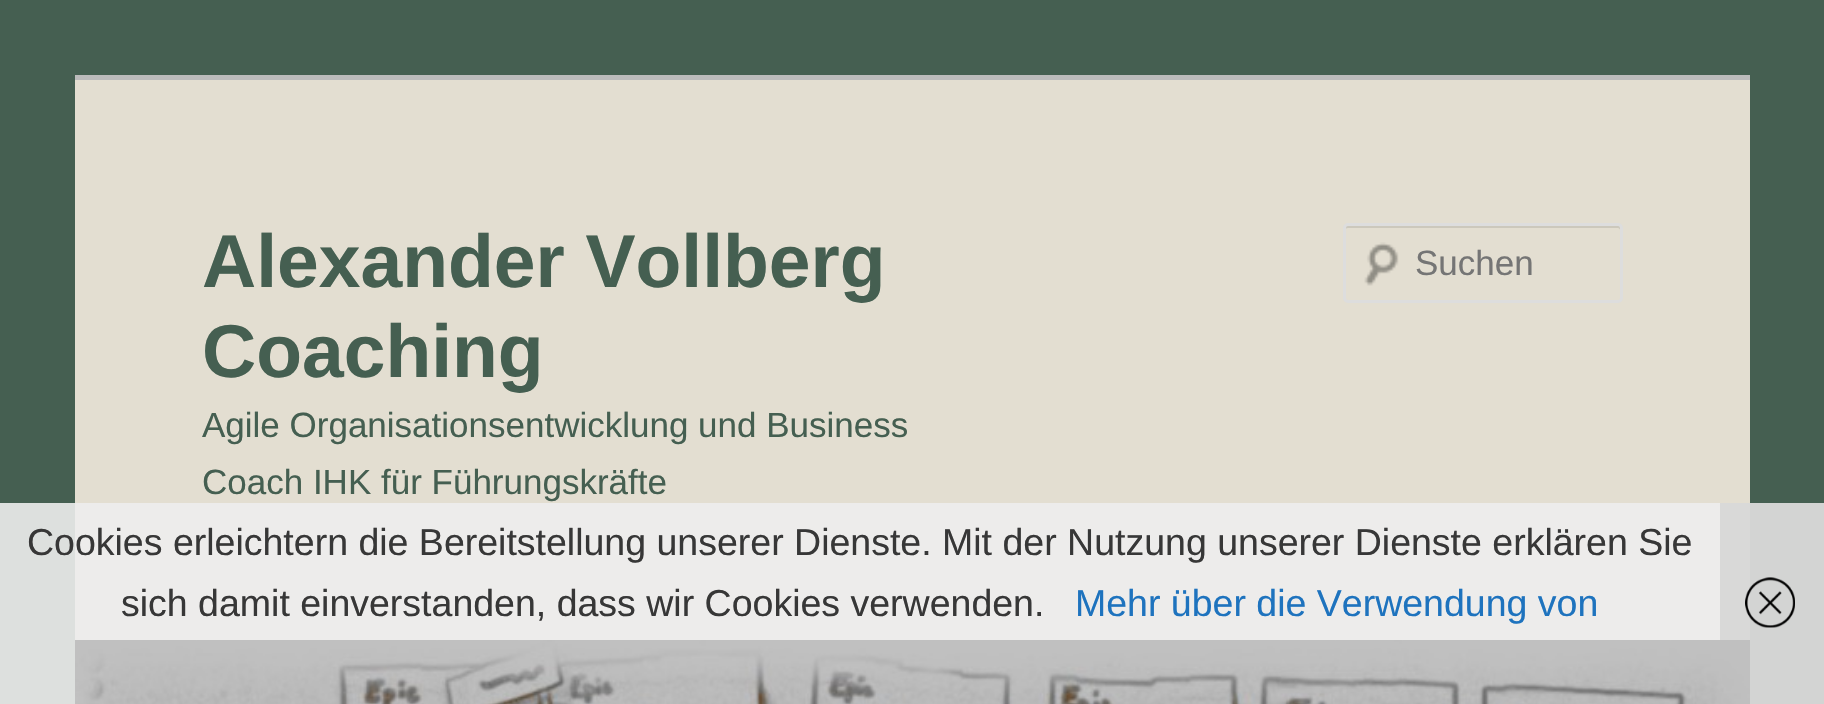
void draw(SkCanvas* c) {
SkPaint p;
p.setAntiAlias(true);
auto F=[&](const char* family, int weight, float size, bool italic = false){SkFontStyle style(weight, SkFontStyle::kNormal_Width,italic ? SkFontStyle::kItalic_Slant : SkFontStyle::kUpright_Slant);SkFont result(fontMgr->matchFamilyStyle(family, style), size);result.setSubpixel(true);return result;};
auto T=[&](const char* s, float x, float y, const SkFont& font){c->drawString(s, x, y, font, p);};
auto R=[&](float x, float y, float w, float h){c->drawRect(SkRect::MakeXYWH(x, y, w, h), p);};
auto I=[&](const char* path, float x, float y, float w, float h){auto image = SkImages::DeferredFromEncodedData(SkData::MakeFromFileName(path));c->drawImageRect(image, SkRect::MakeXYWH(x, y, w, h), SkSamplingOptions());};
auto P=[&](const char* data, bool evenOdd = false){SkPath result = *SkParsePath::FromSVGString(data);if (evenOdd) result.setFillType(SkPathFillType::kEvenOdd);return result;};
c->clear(0xff455f51);
p.setColor(0xffdde0de);
R(0,503,75,201);
p.setColor(0xffd3d4d3);
R(1750,503,74,201);
p.setColor(0xffe3ded1);
R(75,80,1675,423);
p.setColor(0xffedeceb);
R(75,503,1645,137);
p.setColor(0xffd9d9d8);
R(1720,503,30,137);
p.setColor(0xffbbbbbb);
R(75,75,1675,5);
auto f1 = F("Liberation Sans",700,75);
p.setColor(0xff455f51);
T("Alexander Vollberg",202,287,f1);
T("Coaching",202,377,f1);
auto f2 = F("Liberation Sans",400,35);
T("Agile Organisationsentwicklung und Business",202,437,f2);
T("Coach IHK für Führungskräfte",202,494,f2);
I("1.png",1364,242,35,44);
p.setColor(0xffccc8bc);
c->drawPath(P("M1348 228h270c1 0 2 1 2 2v-2c0-2-1-3-2-3h-270c-2 0-3 1-3 3v2c0-1 1-2 3-2z"),p);
p.setStroke(true);
p.setStrokeWidth(3);
p.setColor(0xffdddddd);
c->drawRoundRect(SkRect::MakeXYWH(1344.5,224.5,277,77),3.5,3.5,p);
p.setStroke(false);
p.setColor(0xff757575);
T("Suchen",1415,275,f2);
I("2.png",75,640,1675,64);
auto f3 = F("Liberation Sans",400,37.5);
p.setColor(0xff373737);
T("Cookies erleichtern die Bereitstellung unserer Dienste. Mit der Nutzung unserer Dienste erklären Sie",27,555,f3);
T("sich damit einverstanden, dass wir Cookies verwenden.",121,616,f3);
p.setColor(0xff1e73be);
T("Mehr über die Verwendung von",1075,616,f3);
I("3.png",1745,577,50,51);
}
